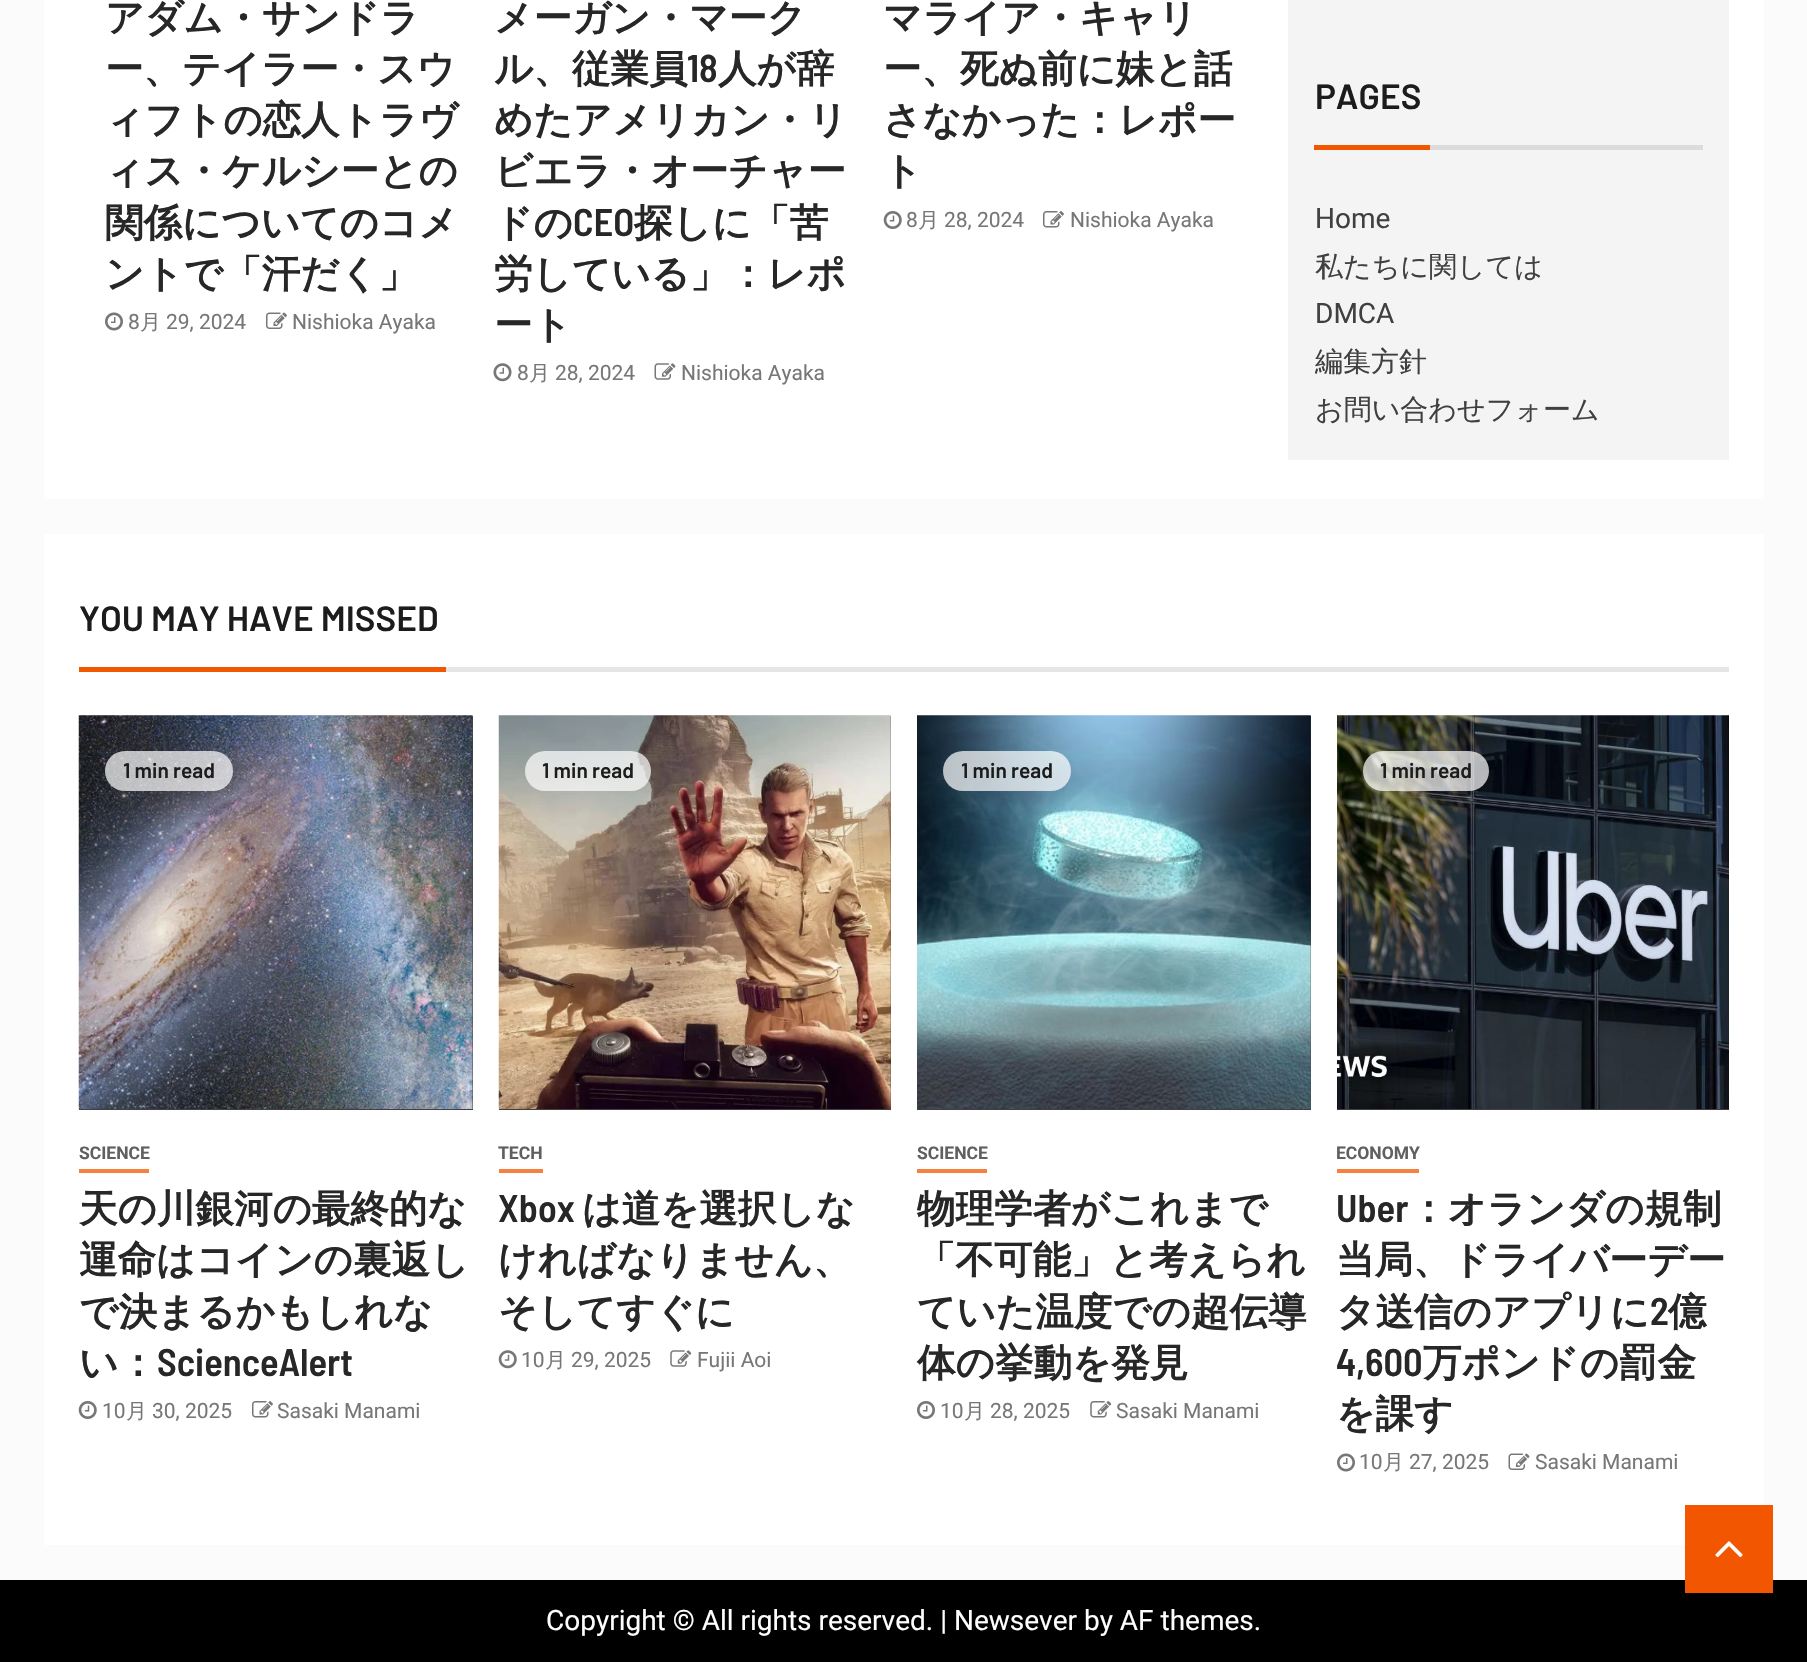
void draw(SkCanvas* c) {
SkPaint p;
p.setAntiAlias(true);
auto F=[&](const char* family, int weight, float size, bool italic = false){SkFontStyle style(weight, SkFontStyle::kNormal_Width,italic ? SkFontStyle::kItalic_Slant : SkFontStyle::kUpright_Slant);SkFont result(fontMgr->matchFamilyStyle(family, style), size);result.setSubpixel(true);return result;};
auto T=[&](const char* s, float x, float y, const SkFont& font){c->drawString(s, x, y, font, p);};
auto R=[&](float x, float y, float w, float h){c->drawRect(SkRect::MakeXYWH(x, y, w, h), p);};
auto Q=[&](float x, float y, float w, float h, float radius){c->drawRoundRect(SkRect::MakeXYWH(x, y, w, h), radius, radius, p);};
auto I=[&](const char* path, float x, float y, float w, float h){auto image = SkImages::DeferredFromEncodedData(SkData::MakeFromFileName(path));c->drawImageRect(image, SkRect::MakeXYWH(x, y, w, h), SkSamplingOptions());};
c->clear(0xfffbfbfb);
p.setColor(0xffffffff);
R(44,0,1720,499);
auto f1 = F("WenQuanYi Zen Hei",700,38.5);
p.setColor(0xff272727);
T("アダム・サンドラ",105,31,f1);
T("ー、テイラー・スウ",105,82,f1);
T("ィフトの恋人トラヴ",105,133,f1);
T("ィス・ケルシーとの",105,184,f1);
T("関係についてのコメ",105,236,f1);
T("ントで「汗だく」",105,287,f1);
I("1.png",105,312,18,19);
auto f2 = F("Roboto",400,21);
p.setColor(0xff777777);
T("8",128,329,f2);
auto f3 = F("WenQuanYi Zen Hei",500,21);
T("月",140,329,f3);
T("29, 2024",166,329,f2);
I("2.png",266,312,21,17);
T("Nishioka Ayaka",292,329,f2);
p.setColor(0xff272727);
T("メーガン・マーク",494,31,f1);
T("ル、従業員",494,82,f1);
auto f4 = F("Barlow Semi Condensed",600,38.5);
T("18",687,82,f4);
T("人が辞",718,82,f1);
T("めたアメリカン・リ",494,133,f1);
T("ビエラ・オーチャー",494,184,f1);
T("ドの",494,236,f1);
T("CEO",573,236,f4);
T("探しに「苦",634,236,f1);
T("労している」：レポ",494,287,f1);
T("ート",494,338,f1);
I("3.png",493,363,19,19);
p.setColor(0xff777777);
T("8",517,380,f2);
T("月",529,380,f3);
T("28, 2024",555,380,f2);
I("4.png",654,363,22,17);
T("Nishioka Ayaka",681,380,f2);
p.setColor(0xff272727);
T("マライア・キャリ",883,31,f1);
T("ー、死ぬ前に妹と話",883,82,f1);
T("さなかった：レポー",883,133,f1);
T("ト",883,184,f1);
I("5.png",883,211,19,18);
p.setColor(0xff777777);
T("8",906,227,f2);
T("月",918,227,f3);
T("28, 2024",944,227,f2);
I("6.png",1043,211,21,17);
T("Nishioka Ayaka",1070,227,f2);
p.setColor(0xfff4f4f4);
R(1288,0,441,460);
auto f5 = F("Barlow",600,35);
p.setColor(0xff1c1c1c);
T("PAGES",1315,109,f5);
p.setColor(0xfff25600);
R(1314,145,116,5);
p.setColor(0xffdcdcdc);
R(1430,145,273,5);
auto f6 = F("Roboto",400,28);
p.setColor(0xff404040);
T("Home",1315,228,f6);
auto f7 = F("WenQuanYi Zen Hei",500,28);
T("私たちに関しては",1315,276,f7);
T("DMCA",1315,323,f6);
T("編集方針",1315,371,f7);
T("お問い合わせフォーム",1315,419,f7);
p.setColor(0xffffffff);
R(44,534,1720,1011);
p.setColor(0xff1c1c1c);
T("YOU MAY HAVE MISSED",79,631,f5);
p.setColor(0xfff25600);
R(79,667,367,5);
p.setColor(0xffe6e6e6);
R(446,667,1283,5);
p.setColor(0xff404040);
R(79,716,394,394);
I("7.png",78,715,395,394);
p.setColor(0xb3ffffff);
Q(105,751,128,40,20);
auto f8 = F("Barlow",600,21);
p.setColor(0xff1c1c1c);
T("1 min read",123,778,f8);
p.setColor(0xfff58040);
R(79,1169,70,4);
auto f9 = F("Roboto",700,17.5);
p.setColor(0xff606060);
T("SCIENCE",79,1159,f9);
p.setColor(0xff272727);
T("天の川銀河の最終的な",79,1222,f1);
T("運命はコインの裏返し",79,1273,f1);
T("で決まるかもしれな",79,1325,f1);
T("い：",79,1376,f1);
T("ScienceAlert",157,1376,f4);
I("5.png",78,1401,19,18);
p.setColor(0xff777777);
T("10",102,1418,f2);
T("月",126,1418,f3);
T("30, 2025",152,1418,f2);
I("8.png",252,1401,21,17);
T("Sasaki Manami",277,1418,f2);
p.setColor(0xff404040);
R(499,716,392,394);
I("9.png",498,715,393,394);
p.setColor(0xb3ffffff);
Q(525,751,126,40,20);
p.setColor(0xff1c1c1c);
T("1 min read",542,778,f8);
p.setColor(0xfff58040);
R(499,1169,44,4);
p.setColor(0xff606060);
T("TECH",498,1159,f9);
p.setColor(0xff272727);
T("Xbox",498,1222,f4);
T("は道を選択しな",582,1222,f1);
T("ければなりません、",498,1273,f1);
T("そしてすぐに",498,1325,f1);
I("10.png",498,1350,19,19);
p.setColor(0xff777777);
T("10",521,1367,f2);
T("月",545,1367,f3);
T("29, 2025",571,1367,f2);
I("11.png",670,1350,22,17);
T("Fujii Aoi",697,1367,f2);
p.setColor(0xff404040);
R(917,716,394,394);
I("12.png",917,715,394,394);
p.setColor(0xb3ffffff);
Q(943,751,128,40,20);
p.setColor(0xff1c1c1c);
T("1 min read",961,778,f8);
p.setColor(0xfff58040);
R(917,1169,70,4);
p.setColor(0xff606060);
T("SCIENCE",917,1159,f9);
p.setColor(0xff272727);
T("物理学者がこれまで",917,1222,f1);
T("「不可能」と考えられ",917,1273,f1);
T("ていた温度での超伝導",917,1325,f1);
T("体の挙動を発見",917,1376,f1);
I("13.png",917,1401,18,18);
p.setColor(0xff777777);
T("10",940,1418,f2);
T("月",964,1418,f3);
T("28, 2025",990,1418,f2);
I("14.png",1090,1401,22,17);
T("Sasaki Manami",1116,1418,f2);
p.setColor(0xff404040);
R(1337,1109,392,1);
I("15.png",1337,715,392,394);
p.setColor(0xb3ffffff);
Q(1363,751,126,40,20);
p.setColor(0xff1c1c1c);
T("1 min read",1380,778,f8);
p.setColor(0xfff58040);
R(1337,1169,82,4);
p.setColor(0xff606060);
T("ECONOMY",1336,1159,f9);
p.setColor(0xff272727);
T("Uber",1336,1222,f4);
T("：オランダの規制",1409,1222,f1);
T("当局、ドライバーデー",1336,1273,f1);
T("タ送信のアプリに",1336,1325,f1);
T("2",1650,1325,f4);
T("億",1668,1325,f1);
T("4,600",1336,1376,f4);
T("万ポンドの罰金",1423,1376,f1);
T("を課す",1336,1427,f1);
I("1.png",1337,1453,18,19);
p.setColor(0xff777777);
T("10",1359,1469,f2);
T("月",1383,1469,f3);
T("27, 2025",1409,1469,f2);
I("16.png",1508,1453,22,17);
T("Sasaki Manami",1535,1469,f2);
p.setColor(0xff000000);
R(0,1580,1807,82);
p.setColor(0xffffffff);
T("Copyright © All rights reserved. | Newsever by AF themes.",546,1630,f6);
p.setColor(0xfff25600);
R(1685,1505,88,88);
I("17.png",1715,1541,28,17);
}
